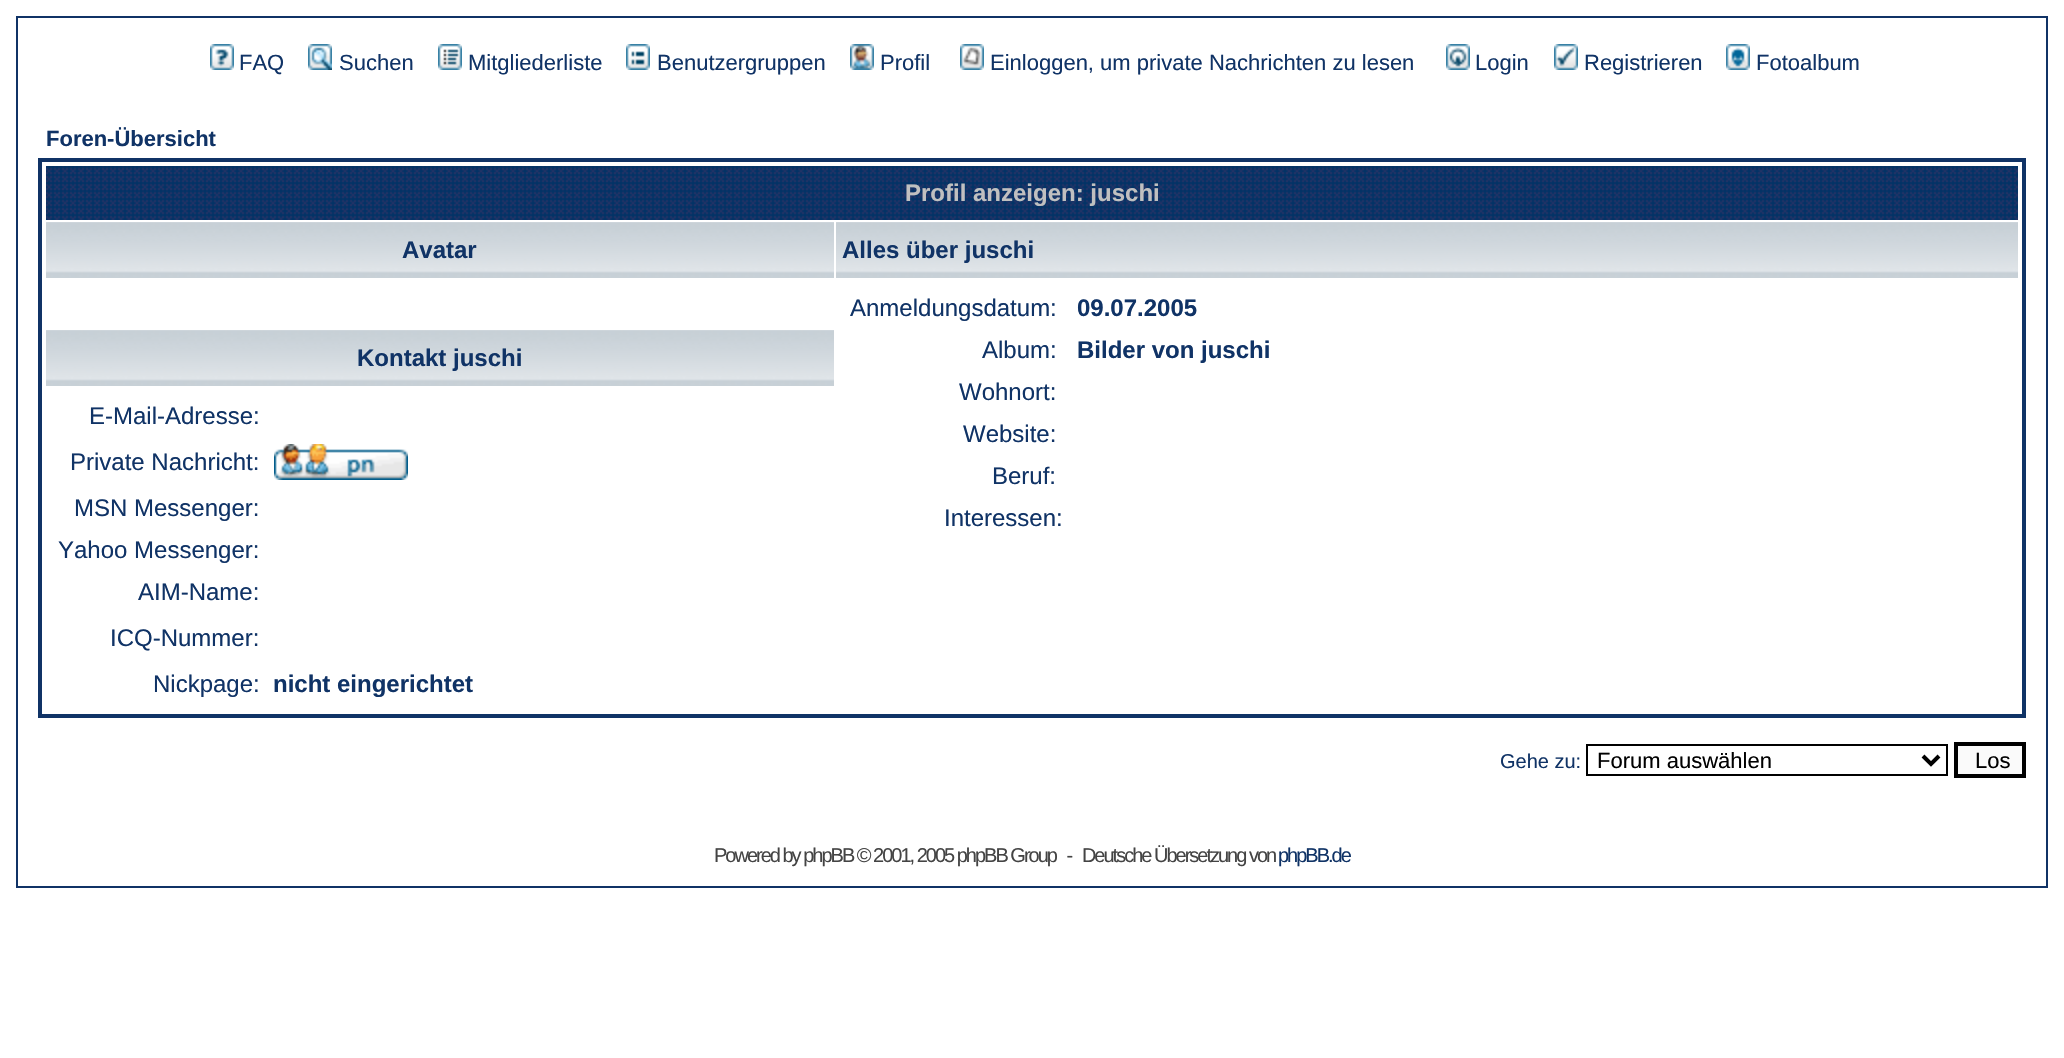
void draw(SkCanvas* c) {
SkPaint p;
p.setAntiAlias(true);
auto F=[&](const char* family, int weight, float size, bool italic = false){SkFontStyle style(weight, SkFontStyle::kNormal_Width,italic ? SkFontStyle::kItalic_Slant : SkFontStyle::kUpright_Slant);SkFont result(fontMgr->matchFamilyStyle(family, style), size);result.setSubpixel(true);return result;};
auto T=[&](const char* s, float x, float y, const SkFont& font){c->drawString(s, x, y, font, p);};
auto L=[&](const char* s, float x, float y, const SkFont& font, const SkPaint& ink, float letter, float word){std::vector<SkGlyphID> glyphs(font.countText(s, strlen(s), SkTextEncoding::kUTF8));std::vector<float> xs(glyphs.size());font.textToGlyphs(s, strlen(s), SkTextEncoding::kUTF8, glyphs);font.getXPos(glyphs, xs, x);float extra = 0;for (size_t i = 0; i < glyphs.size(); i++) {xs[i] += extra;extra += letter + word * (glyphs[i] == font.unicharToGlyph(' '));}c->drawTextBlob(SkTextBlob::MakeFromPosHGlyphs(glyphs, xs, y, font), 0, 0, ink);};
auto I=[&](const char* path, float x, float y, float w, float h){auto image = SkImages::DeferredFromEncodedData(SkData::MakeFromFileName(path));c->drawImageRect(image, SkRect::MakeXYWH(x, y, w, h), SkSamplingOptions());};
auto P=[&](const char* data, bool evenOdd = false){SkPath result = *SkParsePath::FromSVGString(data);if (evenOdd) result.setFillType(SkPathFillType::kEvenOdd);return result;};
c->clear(0xffffffff);
p.setStroke(true);
p.setStrokeWidth(2);
p.setColor(0xff103366);
c->drawRect(SkRect::MakeXYWH(17,17,2030,870),p);
I("1.png",210,44,24,26);
auto f1 = F("Liberation Sans",400,22);
p.setStroke(false);
T("FAQ",239,70,f1);
I("2.png",308,44,24,26);
T("Suchen",339,70,f1);
I("3.png",438,44,24,26);
T("Mitgliederliste",468,70,f1);
I("4.png",626,44,24,26);
T("Benutzergruppen",657,70,f1);
I("5.png",850,44,24,26);
T("Profil",880,70,f1);
I("6.png",960,44,24,26);
T("Einloggen, um private Nachrichten zu lesen",990,70,f1);
I("7.png",1446,44,24,26);
T("Login",1475,70,f1);
I("8.png",1554,44,24,26);
T("Registrieren",1584,70,f1);
I("9.png",1726,44,24,26);
T("Fotoalbum",1756,70,f1);
auto f2 = F("Liberation Sans",700,22);
T("Foren-Übersicht",46,146,f2);
p.setStroke(true);
p.setStrokeWidth(4);
c->drawRect(SkRect::MakeXYWH(40,160,1984,556),p);
I("10.png",46,166,1972,54);
auto f3 = F("Liberation Sans",700,24);
p.setStroke(false);
p.setColor(0xffc0c0c0);
T("Profil anzeigen: juschi",905,201,f3);
I("11.png",46,222,788,56);
p.setColor(0xff103366);
T("Avatar",402,258,f3);
I("12.png",836,222,1182,56);
T("Alles über juschi",842,258,f3);
I("11.png",46,330,788,56);
T("Kontakt juschi",357,366,f3);
auto f4 = F("Liberation Sans",400,24);
T("Anmeldungsdatum:",850,316,f4);
T("09.07.2005",1077,316,f3);
T("Album:",982,358,f4);
T("Bilder von juschi",1077,358,f3);
T("Wohnort:",959,400,f4);
T("Website:",963,442,f4);
T("Beruf:",992,484,f4);
T("Interessen:",944,526,f4);
T("E-Mail-Adresse:",89,424,f4);
T("Private Nachricht:",70,470,f4);
I("13.png",274,444,134,36);
T("MSN Messenger:",74,516,f4);
T("Yahoo Messenger:",58,558,f4);
T("AIM-Name:",138,600,f4);
T("ICQ-Nummer:",110,646,f4);
T("Nickpage:",153,692,f4);
T("nicht eingerichtet",273,692,f3);
auto f5 = F("Liberation Sans",400,20);
T("Gehe zu:",1500,768,f5);
p.setStroke(true);
p.setStrokeWidth(2);
p.setColor(0xff000000);
c->drawRect(SkRect::MakeXYWH(1587,745,360,30),p);
p.setStrokeWidth(4);
c->drawPath(P("M1923 756l8 8l8-8"),p);
p.setStroke(false);
T("Forum auswählen",1597,768,f1);
p.setColor(0xfffafafa);
c->drawRect(SkRect::MakeXYWH(1956,744,68,32),p);
p.setStroke(true);
p.setColor(0xff000000);
c->drawRect(SkRect::MakeXYWH(1956,744,68,32),p);
p.setStroke(false);
T("Los",1975,768,f1);
p.setColor(0xff444444);
L("Powered by phpBB © 2001, 2005 phpBB Group   -   Deutsche Übersetzung von",714,862,f5,p,-2,0);
p.setColor(0xff103366);
L("phpBB.de",1278,862,f5,p,-2,0);
}
